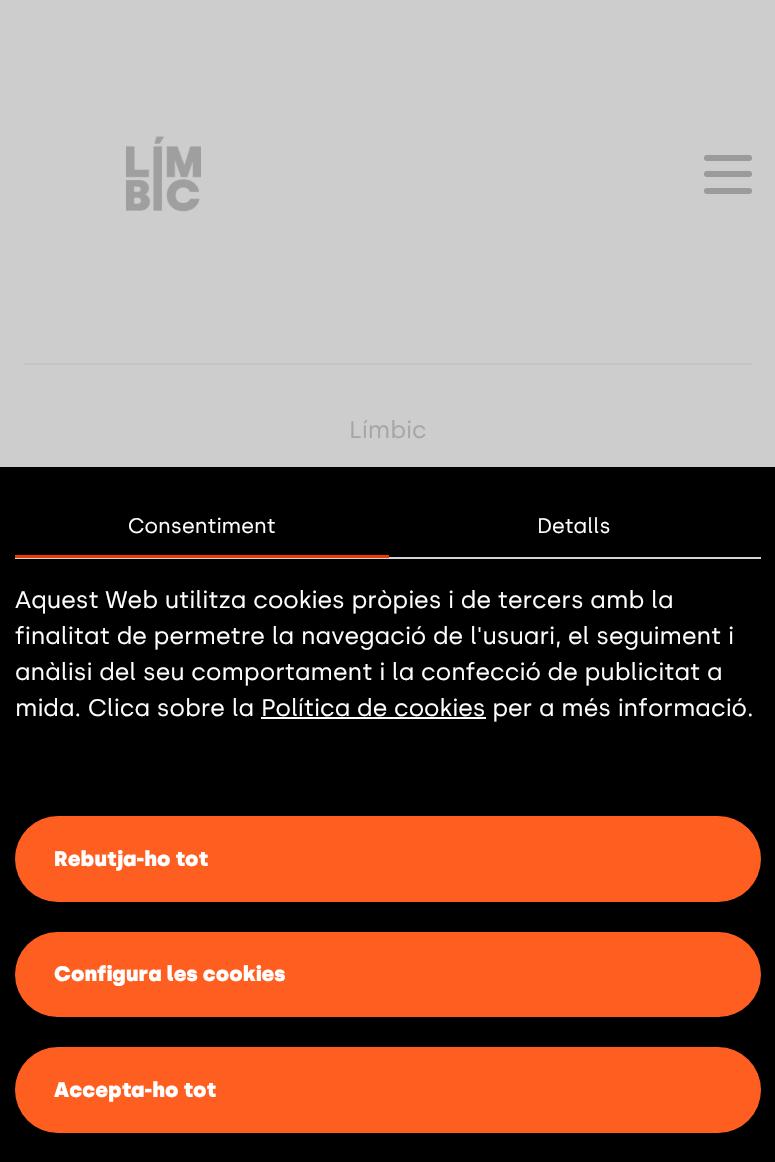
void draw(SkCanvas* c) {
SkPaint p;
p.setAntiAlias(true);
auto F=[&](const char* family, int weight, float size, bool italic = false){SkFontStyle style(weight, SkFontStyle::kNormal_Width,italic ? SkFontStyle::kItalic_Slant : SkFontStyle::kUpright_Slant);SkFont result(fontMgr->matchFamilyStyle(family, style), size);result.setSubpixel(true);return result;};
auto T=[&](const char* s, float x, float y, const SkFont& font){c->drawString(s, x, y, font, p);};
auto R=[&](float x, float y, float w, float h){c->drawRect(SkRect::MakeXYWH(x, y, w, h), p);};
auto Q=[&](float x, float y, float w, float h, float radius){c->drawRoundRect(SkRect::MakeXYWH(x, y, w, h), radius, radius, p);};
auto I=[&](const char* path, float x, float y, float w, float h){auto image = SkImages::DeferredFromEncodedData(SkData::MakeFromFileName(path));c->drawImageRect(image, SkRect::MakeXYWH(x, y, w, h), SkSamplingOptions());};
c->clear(0xffcdcdcd);
I("1.png",126,136,75,76);
p.setColor(0xff9b9b9c);
Q(704,155,48,6,3);
Q(704,171,48,6,3);
Q(704,188,48,6,3);
p.setColor(0xffc4c4c4);
R(24,363,728,2);
auto f1 = F("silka",400,24);
p.setColor(0xffa6a6a6);
T("Límbic",349,438,f1);
p.setColor(0xff000000);
R(0,467,775,695);
p.setColor(0xffd4d4d4);
R(15,557,746,2);
auto f2 = F("silka",400,21);
p.setColor(0xffffffff);
T("Consentiment",128,533,f2);
p.setColor(0xffe63d00);
R(15,555,374,3);
p.setColor(0xffffffff);
T("Detalls",537,533,f2);
T("Aquest Web utilitza cookies pròpies i de tercers amb la",15,608,f1);
T("finalitat de permetre la navegació de l'usuari, el seguiment i",15,644,f1);
T("anàlisi del seu comportament i la confecció de publicitat a",15,680,f1);
T("mida. Clica sobre la Política de cookies per a més informació.",15,716,f1);
R(261,717,225,2);
p.setColor(0xffff5e21);
Q(15,816,746,86,43);
auto f3 = F("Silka",900,21);
p.setColor(0xffffffff);
T("Rebutja-ho tot",54,866,f3);
p.setColor(0xffff5e21);
Q(15,932,746,85,42.5);
p.setColor(0xffffffff);
T("Configura les cookies",54,981,f3);
p.setColor(0xffff5e21);
Q(15,1047,746,86,43);
p.setColor(0xffffffff);
T("Accepta-ho tot",54,1097,f3);
}
